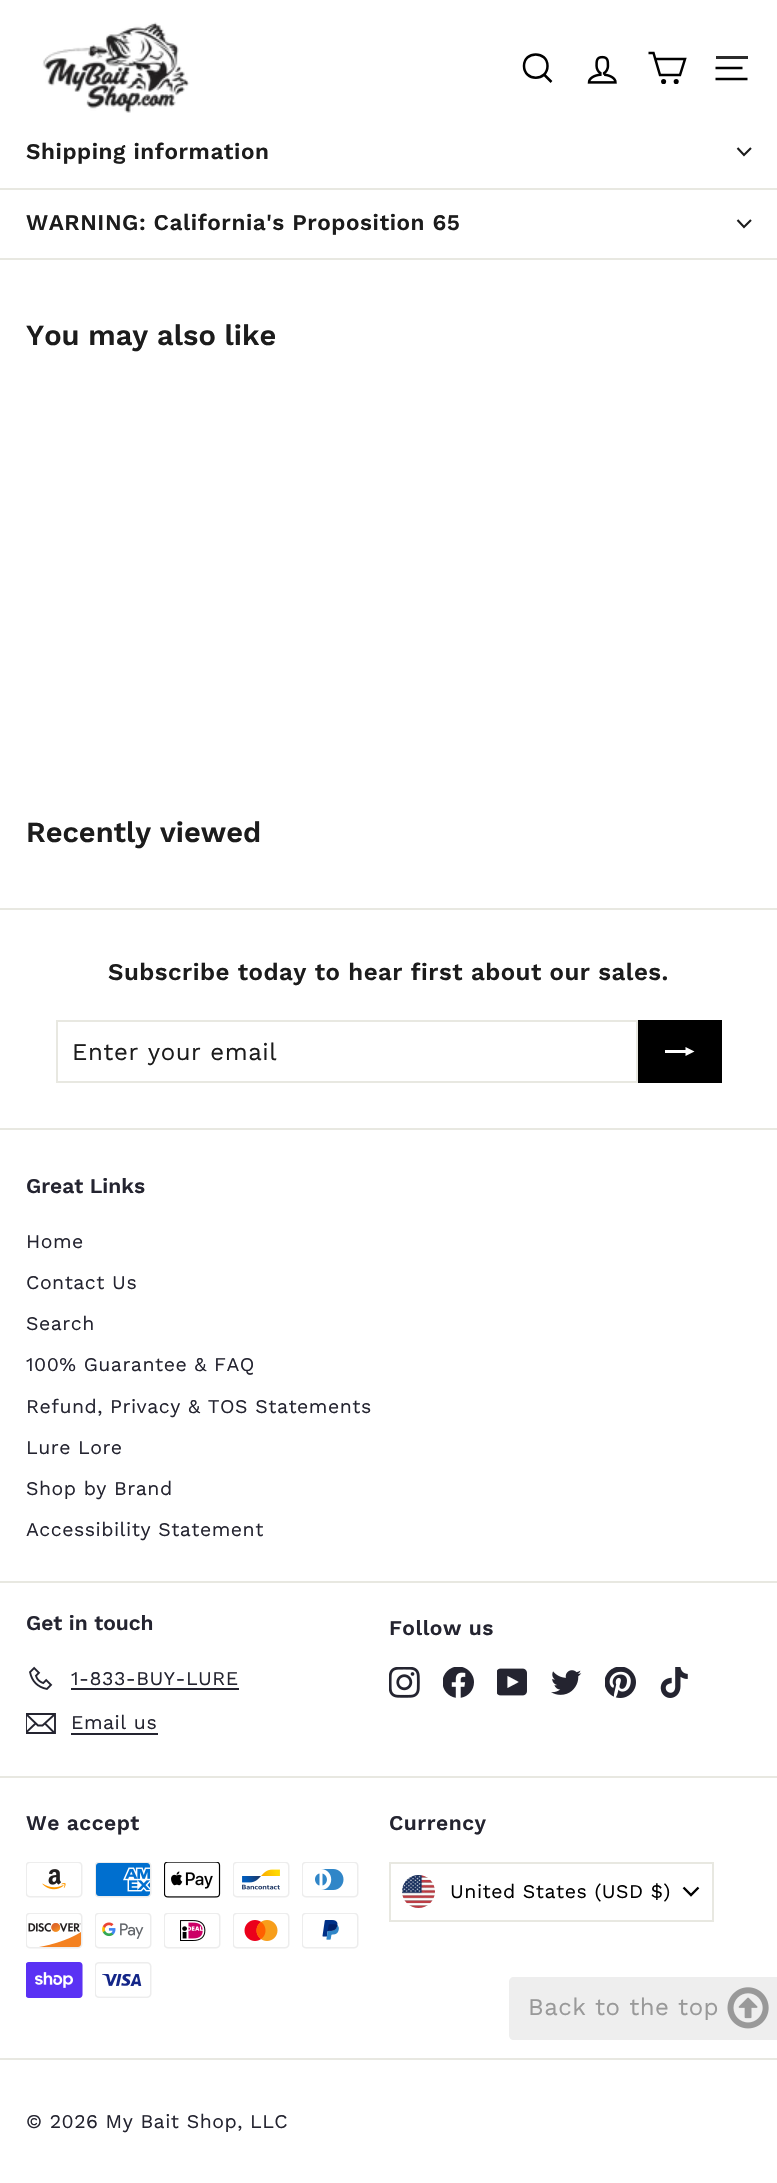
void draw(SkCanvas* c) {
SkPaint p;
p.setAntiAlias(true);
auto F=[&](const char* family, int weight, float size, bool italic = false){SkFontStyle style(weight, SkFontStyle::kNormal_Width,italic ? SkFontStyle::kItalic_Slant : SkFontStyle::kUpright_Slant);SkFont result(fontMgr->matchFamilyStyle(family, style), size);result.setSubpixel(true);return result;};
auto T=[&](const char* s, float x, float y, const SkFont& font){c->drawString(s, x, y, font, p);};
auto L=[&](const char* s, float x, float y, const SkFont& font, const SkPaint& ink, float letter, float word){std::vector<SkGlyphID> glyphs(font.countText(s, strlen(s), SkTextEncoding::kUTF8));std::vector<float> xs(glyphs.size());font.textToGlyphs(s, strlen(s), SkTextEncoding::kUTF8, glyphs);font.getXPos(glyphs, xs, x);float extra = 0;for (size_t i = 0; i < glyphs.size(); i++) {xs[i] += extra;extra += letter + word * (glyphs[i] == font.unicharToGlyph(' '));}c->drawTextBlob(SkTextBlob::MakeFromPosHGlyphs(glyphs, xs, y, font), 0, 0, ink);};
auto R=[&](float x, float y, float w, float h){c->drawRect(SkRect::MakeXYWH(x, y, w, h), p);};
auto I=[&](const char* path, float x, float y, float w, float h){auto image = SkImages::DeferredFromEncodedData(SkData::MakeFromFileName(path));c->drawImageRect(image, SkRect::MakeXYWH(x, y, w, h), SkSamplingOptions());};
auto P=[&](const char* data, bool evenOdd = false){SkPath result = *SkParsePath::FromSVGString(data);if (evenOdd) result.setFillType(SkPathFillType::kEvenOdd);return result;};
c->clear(0xffffffff);
I("1.png",42,22,148,91);
p.setStroke(true);
p.setStrokeWidth(2.5);
p.setColor(0xff000000);
c->drawPath(P("M547.5 66c0 15.5-23.5 15.5-23.5 0c0-15.5 23.5-15.5 23.5 0m4 16l-7.5-7.5"),p);
I("2.png",587,55,30,29);
c->drawPath(P("M655.5 59h29.5l-5 16h-20l-6.5-22h-5"),p);
c->drawCircle(663.6,81.5,1.3,p);
c->drawCircle(676.2,81.5,1.3,p);
p.setStroke(false);
p.setColor(0xff2b2b2b);
R(716,56,32,3);
p.setStroke(true);
p.setColor(0xff000000);
c->drawPath(P("M715.5 68h27m-27 11h32"),p);
p.setStroke(false);
p.setColor(0xffe8e8e1);
R(0,188,777,2);
auto f1 = F("Work Sans",600,22.5);
p.setColor(0xff1c1c1c);
L("Shipping information",26,159,f1,p,.55,0);
p.setStroke(true);
p.setStrokeWidth(2.1);
c->drawPath(P("M737.5 148l6.5 7l7-7"),p);
p.setStroke(false);
p.setColor(0xffe8e8e1);
R(0,258,777,2);
p.setColor(0xff1c1c1c);
L("WARNING: California's Proposition 65",26,230,f1,p,.55,0);
p.setStroke(true);
c->drawPath(P("M737.5 220l6.5 7l7-7"),p);
auto f2 = F("Work Sans",600,29);
p.setStroke(false);
T("You may also like",26,345,f2);
T("Recently viewed",26,842,f2);
p.setColor(0xffe8e8e1);
R(0,908,777,2);
auto f3 = F("Work Sans",600,24);
p.setColor(0xff1c1c1c);
L("Subscribe today to hear first about our sales.",108,980,f3,p,.5,0);
p.setStroke(true);
p.setStrokeWidth(2);
p.setColor(0xffe8e8e1);
c->drawRect(SkRect::MakeXYWH(57,1021,580,61),p);
auto f4 = F("Work Sans",400,24);
p.setStroke(false);
p.setColor(0xff1c1c1c);
L("Enter your email",72,1060,f4,p,.6,0);
p.setColor(0xff000000);
R(638,1020,84,63);
c->save();
c->clipRect(SkRect::MakeXYWH(665,1037,30,30));
p.setColor(0xffffffff);
c->drawPath(P("M664.5 1053v-3h21v-3l9 4.5l-9 4.5v-3z"),p);
c->restore();
p.setColor(0xffe8e8e1);
R(0,1128,777,2);
auto f5 = F("Work Sans",600,21);
p.setColor(0xff242430);
T("Great Links",26,1193,f5);
auto f6 = F("Work Sans",400,19.5);
L("Home",26,1248,f6,p,.5,0);
L("Contact Us",26,1289,f6,p,.5,0);
L("Search",26,1330,f6,p,.5,0);
L("100% Guarantee & FAQ",26,1371,f6,p,.5,0);
L("Refund, Privacy & TOS Statements",26,1413,f6,p,.5,0);
L("Lure Lore",26,1454,f6,p,.5,0);
L("Shop by Brand",26,1495,f6,p,.5,0);
L("Accessibility Statement",26,1536,f6,p,.5,0);
p.setColor(0xffe8e8e1);
R(0,1581,777,2);
p.setColor(0xff242430);
T("Get in touch",26,1630,f5);
I("3.png",29,1666,24,24);
L("1-833-BUY-LURE",71,1685,f6,p,.5,0);
R(71,1688,168,2);
c->save();
c->clipRect(SkRect::MakeXYWH(26,1709,30,30));
p.setStroke(true);
p.setStrokeWidth(1.9);
c->drawPath(P("M55 1733h-29v-19h29zm-29-19l12 11.5h4.5l12.5-11.5m-19.5 9.5l-9.5 9m28.5 .5l-9.5-9.5"),p);
c->restore();
p.setStroke(false);
L("Email us",71,1729,f6,p,.5,0);
R(71,1733,87,2);
L("Follow us",389,1635,f5,p,.5,0);
I("4.png",389,1667,31,31);
I("5.png",443,1667,31,31);
I("6.png",497,1668,30,28);
I("7.png",551,1670,31,25);
I("8.png",605,1667,31,31);
I("9.png",660,1667,28,31);
p.setColor(0xffe8e8e1);
R(0,1776,777,2);
p.setColor(0xff242430);
L("We accept",26,1830,f5,p,.5,0);
I("10.png",26,1862,57,36);
I("11.png",95,1862,57,36);
I("12.png",164,1862,57,36);
I("13.png",233,1862,57,36);
I("14.png",302,1862,57,36);
I("15.png",26,1913,57,36);
I("16.png",95,1913,57,36);
I("17.png",164,1913,57,36);
I("18.png",233,1913,57,36);
I("19.png",302,1913,57,36);
I("20.png",26,1962,57,36);
I("21.png",95,1962,57,36);
L("Currency",389,1830,f5,p,.5,0);
p.setStroke(true);
p.setStrokeWidth(2);
p.setColor(0xffe8e8e1);
c->drawRect(SkRect::MakeXYWH(390,1863,323,58),p);
I("22.png",402,1875,33,33);
p.setStroke(false);
p.setColor(0xff000000);
L("United States (USD $)",450,1898,f6,p,.5,0);
p.setStroke(true);
p.setStrokeWidth(2.4);
c->drawPath(P("M683.5 1887.5l7.5 7.5l7.5-7.5"),p);
p.setStroke(false);
p.setColor(0xffe8e8e1);
R(0,2058,777,2);
p.setColor(0xff242430);
L("© 2026 My Bait Shop, LLC",26,2128,f6,p,.5,0);
p.setColor(0xffeeeeee);
c->drawPath(P("M514 1977h263v63h-263c-3 0-5-2-5-5v-53c0-3 2-5 5-5z"),p);
p.setColor(0xff999999);
L("Back to the top",528,2015,f4,p,.5,0);
I("23.png",727,1987,42,42);
}
